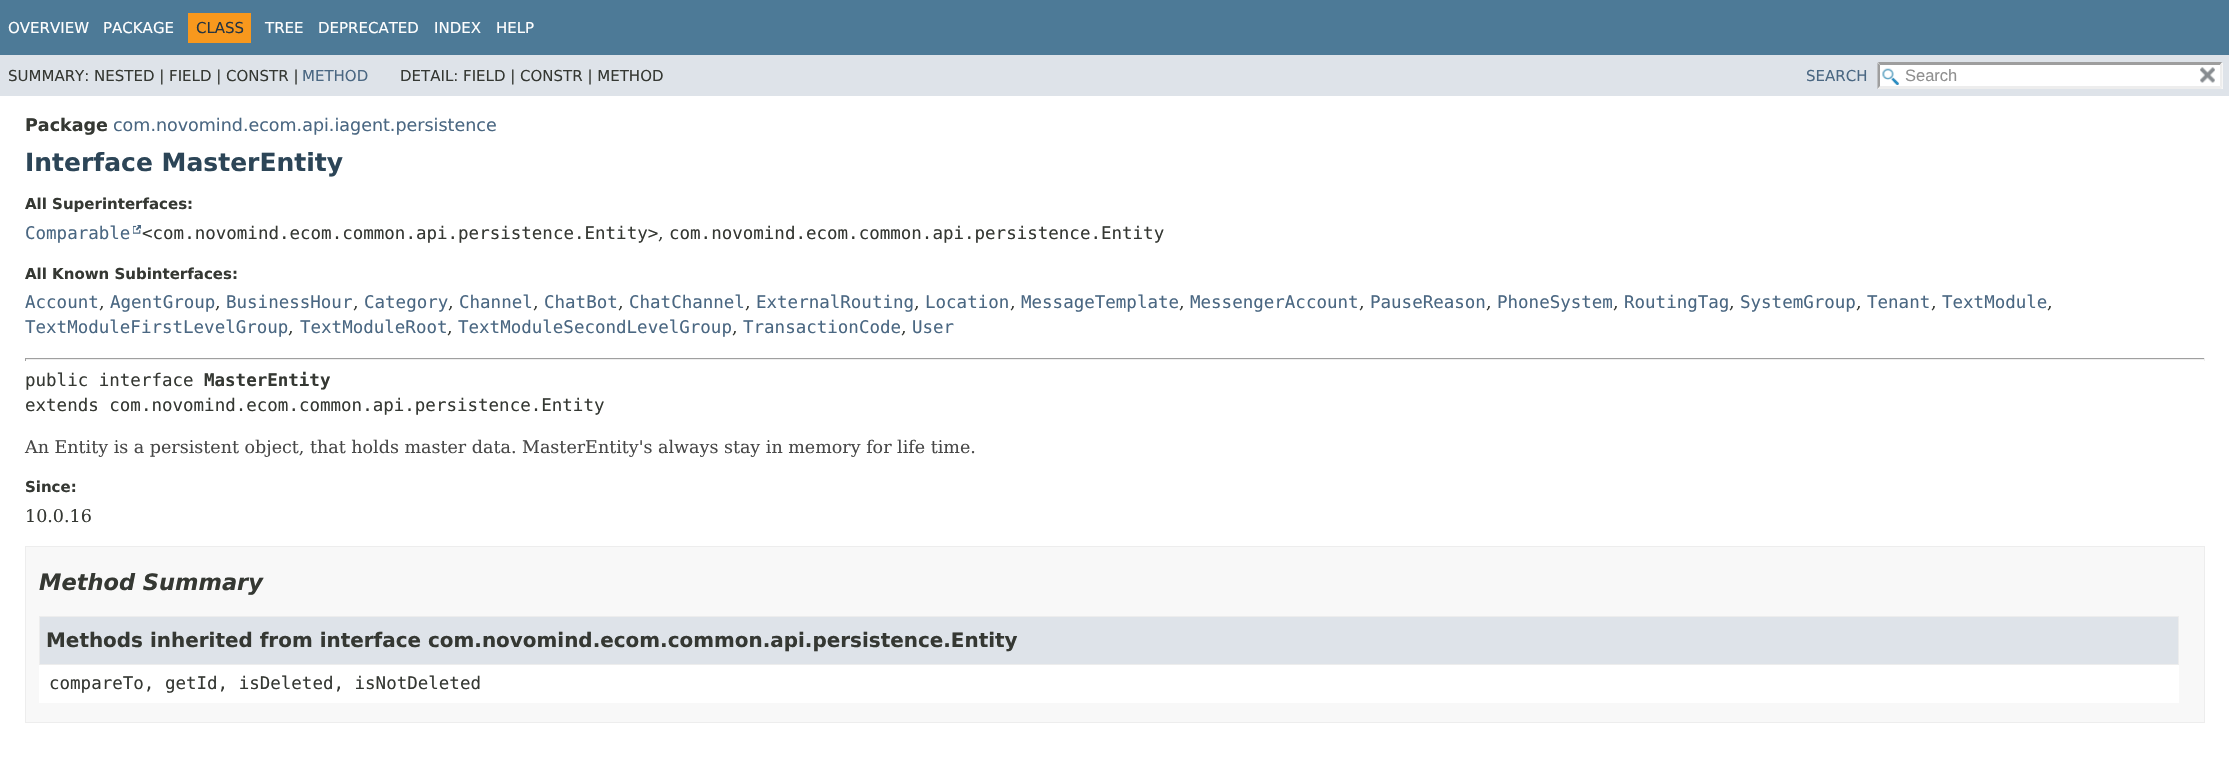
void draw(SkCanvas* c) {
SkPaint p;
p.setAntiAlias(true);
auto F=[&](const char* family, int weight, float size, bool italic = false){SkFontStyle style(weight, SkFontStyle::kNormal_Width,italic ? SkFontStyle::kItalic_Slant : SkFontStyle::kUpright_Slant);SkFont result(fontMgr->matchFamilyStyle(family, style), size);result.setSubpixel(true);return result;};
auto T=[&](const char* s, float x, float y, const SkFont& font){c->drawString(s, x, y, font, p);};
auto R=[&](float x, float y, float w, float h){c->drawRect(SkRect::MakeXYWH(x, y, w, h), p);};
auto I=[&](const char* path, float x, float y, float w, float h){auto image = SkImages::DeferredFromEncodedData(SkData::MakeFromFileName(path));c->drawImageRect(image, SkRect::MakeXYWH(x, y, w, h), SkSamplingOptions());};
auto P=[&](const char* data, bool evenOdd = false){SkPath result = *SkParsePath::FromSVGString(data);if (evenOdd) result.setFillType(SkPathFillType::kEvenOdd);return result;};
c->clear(0xffffffff);
p.setColor(0xff4d7a97);
R(0,0,2229,55);
auto f1 = F("DejaVu Sans",400,15);
p.setColor(0xffffffff);
T("OVERVIEW",8,33,f1);
T("PACKAGE",103,33,f1);
p.setColor(0xfff8981d);
R(188,13,63,30);
p.setColor(0xff253441);
T("CLASS",196,33,f1);
p.setColor(0xffffffff);
T("TREE",265,33,f1);
T("DEPRECATED",318,33,f1);
T("INDEX",434,33,f1);
T("HELP",496,33,f1);
p.setColor(0xffdee3e9);
R(0,55,2229,41);
p.setColor(0xff353833);
T("SUMMARY: NESTED | FIELD | CONSTR |",8,81,f1);
p.setColor(0xff4a6782);
T("METHOD",302,81,f1);
p.setColor(0xff353833);
T("DETAIL: FIELD | CONSTR | METHOD",400,81,f1);
p.setColor(0xff4a6782);
T("SEARCH",1806,81,f1);
p.setColor(0xffffffff);
R(1878,63,345,26);
I("1.png",1882,68,17,17);
p.setColor(0xff9e9e9e);
c->drawPath(P("M1878 62h344l-2 3h-340z"),p);
p.setColor(0xffededed);
c->drawPath(P("M2222.5 62.5v26.5l-2.5-3v-21z"),p);
c->drawPath(P("M2222 89h-344l2-3h340z"),p);
p.setColor(0xff9e9e9e);
c->drawPath(P("M1877.5 89v-26.5l2.5 2.5v21z"),p);
auto f2 = F("Liberation Sans",400,16.5);
p.setColor(0xff909090);
T("Search",1905,81,f2);
I("2.png",2200,67,15,16);
auto f3 = F("DejaVu Sans",700,17.5);
p.setColor(0xff353833);
T("Package",25,131,f3);
auto f4 = F("DejaVu Sans",400,17.5);
p.setColor(0xff4a6782);
T("com.novomind.ecom.api.iagent.persistence",113,131,f4);
auto f5 = F("DejaVu Sans",700,25);
p.setColor(0xff2c4557);
T("Interface MasterEntity",25,171,f5);
auto f6 = F("DejaVu Sans",700,15);
p.setColor(0xff353833);
T("All Superinterfaces:",25,209,f6);
auto f7 = F("DejaVu Sans Mono",400,17.5);
p.setColor(0xff4a6782);
T("Comparable",25,239,f7);
I("3.png",133,225,8,9);
p.setColor(0xff353833);
T("<com.novomind.ecom.common.api.persistence.Entity>",142,239,f7);
auto f8 = F("DejaVu Serif",400,17.5);
T(",",658,239,f8);
T("com.novomind.ecom.common.api.persistence.Entity",669,239,f7);
T("All Known Subinterfaces:",25,279,f6);
p.setColor(0xff4a6782);
T("Account",25,308,f7);
p.setColor(0xff353833);
T(",",99,308,f8);
p.setColor(0xff4a6782);
T("AgentGroup",110,308,f7);
p.setColor(0xff353833);
T(",",215,308,f8);
p.setColor(0xff4a6782);
T("BusinessHour",226,308,f7);
p.setColor(0xff353833);
T(",",353,308,f8);
p.setColor(0xff4a6782);
T("Category",364,308,f7);
p.setColor(0xff353833);
T(",",448,308,f8);
p.setColor(0xff4a6782);
T("Channel",459,308,f7);
p.setColor(0xff353833);
T(",",533,308,f8);
p.setColor(0xff4a6782);
T("ChatBot",544,308,f7);
p.setColor(0xff353833);
T(",",618,308,f8);
p.setColor(0xff4a6782);
T("ChatChannel",629,308,f7);
p.setColor(0xff353833);
T(",",745,308,f8);
p.setColor(0xff4a6782);
T("ExternalRouting",756,308,f7);
p.setColor(0xff353833);
T(",",914,308,f8);
p.setColor(0xff4a6782);
T("Location",925,308,f7);
p.setColor(0xff353833);
T(",",1010,308,f8);
p.setColor(0xff4a6782);
T("MessageTemplate",1021,308,f7);
p.setColor(0xff353833);
T(",",1179,308,f8);
p.setColor(0xff4a6782);
T("MessengerAccount",1190,308,f7);
p.setColor(0xff353833);
T(",",1359,308,f8);
p.setColor(0xff4a6782);
T("PauseReason",1370,308,f7);
p.setColor(0xff353833);
T(",",1486,308,f8);
p.setColor(0xff4a6782);
T("PhoneSystem",1497,308,f7);
p.setColor(0xff353833);
T(",",1613,308,f8);
p.setColor(0xff4a6782);
T("RoutingTag",1624,308,f7);
p.setColor(0xff353833);
T(",",1729,308,f8);
p.setColor(0xff4a6782);
T("SystemGroup",1740,308,f7);
p.setColor(0xff353833);
T(",",1856,308,f8);
p.setColor(0xff4a6782);
T("Tenant",1867,308,f7);
p.setColor(0xff353833);
T(",",1931,308,f8);
p.setColor(0xff4a6782);
T("TextModule",1942,308,f7);
p.setColor(0xff353833);
T(",",2047,308,f8);
p.setColor(0xff4a6782);
T("TextModuleFirstLevelGroup",25,333,f7);
p.setColor(0xff353833);
T(",",288,333,f8);
p.setColor(0xff4a6782);
T("TextModuleRoot",300,333,f7);
p.setColor(0xff353833);
T(",",447,333,f8);
p.setColor(0xff4a6782);
T("TextModuleSecondLevelGroup",458,333,f7);
p.setColor(0xff353833);
T(",",732,333,f8);
p.setColor(0xff4a6782);
T("TransactionCode",743,333,f7);
p.setColor(0xff353833);
T(",",901,333,f8);
p.setColor(0xff4a6782);
T("User",912,333,f7);
p.setColor(0xff9f9f9f);
R(25,358,2180,1);
p.setColor(0xffeeeeee);
R(2204,358,1,3);
R(25,359,2180,1);
p.setColor(0xff9f9f9f);
R(25,358,1,3);
p.setColor(0xff353833);
T("public interface",25,386,f7);
auto f9 = F("DejaVu Sans Mono",700,17.5);
T("MasterEntity",204,386,f9);
T("extends com.novomind.ecom.common.api.persistence.Entity",25,411,f7);
p.setColor(0xff474747);
T("An Entity is a persistent object, that holds master data. MasterEntity's always stay in memory for life time.",25,453,f8);
p.setColor(0xff353833);
T("Since:",25,492,f6);
T("10.0.16",25,522,f8);
p.setColor(0xfff8f8f8);
c->drawRect(SkRect::MakeXYWH(25.5,546.5,2179,176),p);
p.setStroke(true);
p.setStrokeWidth(1);
p.setColor(0xffededed);
c->drawRect(SkRect::MakeXYWH(25.5,546.5,2179,176),p);
auto f10 = F("DejaVu Sans",700,22.5,true);
p.setStroke(false);
p.setColor(0xff353833);
T("Method Summary",39,590,f10);
p.setColor(0xffffffff);
R(39,665,2140,38);
p.setColor(0xffdee3e9);
c->drawRect(SkRect::MakeXYWH(39.5,616.5,2139,48),p);
p.setStroke(true);
p.setColor(0xffededed);
c->drawRect(SkRect::MakeXYWH(39.5,616.5,2139,48),p);
auto f11 = F("DejaVu Sans",700,19.95);
p.setStroke(false);
p.setColor(0xff353833);
T("Methods inherited from interface com.novomind.ecom.common.api.persistence.Entity",46,647,f11);
T("compareTo, getId, isDeleted, isNotDeleted",49,689,f7);
}
